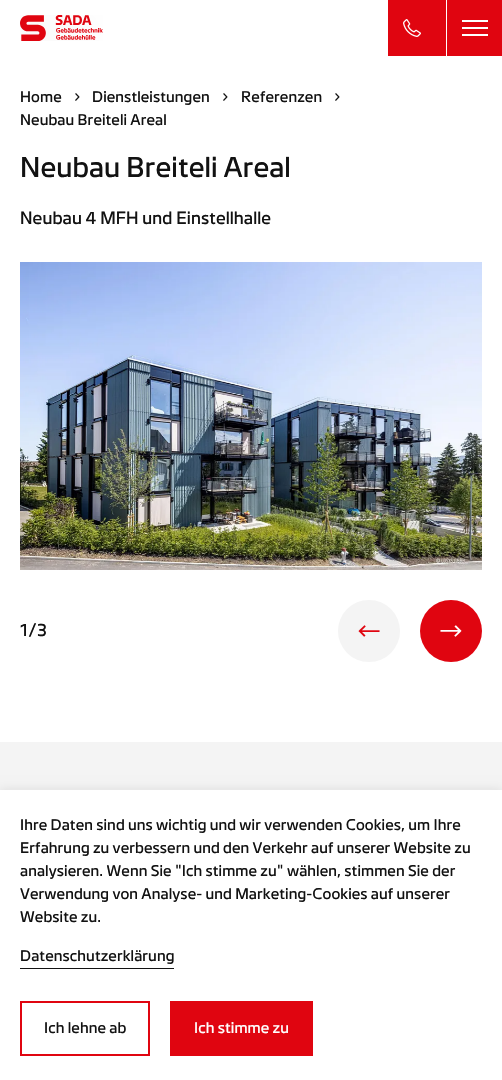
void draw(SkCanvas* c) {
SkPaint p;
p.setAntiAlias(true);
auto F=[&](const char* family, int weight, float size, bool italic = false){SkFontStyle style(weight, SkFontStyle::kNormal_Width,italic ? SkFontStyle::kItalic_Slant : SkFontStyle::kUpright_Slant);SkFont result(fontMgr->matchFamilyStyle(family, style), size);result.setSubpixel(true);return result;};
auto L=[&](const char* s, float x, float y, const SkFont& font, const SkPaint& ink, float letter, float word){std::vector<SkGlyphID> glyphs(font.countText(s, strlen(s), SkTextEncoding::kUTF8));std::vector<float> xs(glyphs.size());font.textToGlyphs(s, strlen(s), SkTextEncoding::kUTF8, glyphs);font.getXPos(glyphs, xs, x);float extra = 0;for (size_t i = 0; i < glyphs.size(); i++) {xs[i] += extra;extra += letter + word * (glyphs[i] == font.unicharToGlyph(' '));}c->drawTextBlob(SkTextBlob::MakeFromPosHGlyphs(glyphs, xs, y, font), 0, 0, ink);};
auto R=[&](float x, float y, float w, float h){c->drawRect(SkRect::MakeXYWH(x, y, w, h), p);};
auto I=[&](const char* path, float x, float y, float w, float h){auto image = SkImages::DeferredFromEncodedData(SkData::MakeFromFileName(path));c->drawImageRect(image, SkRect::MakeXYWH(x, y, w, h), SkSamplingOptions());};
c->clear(0xffffffff);
I("1.png",20,15,83,26);
p.setColor(0xffe00510);
R(388,0,58,56);
I("2.png",403,19,18,18);
R(447,0,55,56);
p.setColor(0xffffffff);
R(462,27,26,2);
R(462,20,26,2);
R(462,34,26,2);
auto f1 = F("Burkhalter",400,14);
p.setColor(0xff121212);
L("Home",20,102,f1,p,.1,0);
I("3.png",75,93,5,8);
L("Dienstleistungen",92,102,f1,p,.1,0);
I("3.png",223,93,5,8);
L("Referenzen",241,102,f1,p,.1,0);
I("3.png",335,93,5,8);
L("Neubau Breiteli Areal",20,125,f1,p,.1,0);
auto f2 = F("Burkhalter",400,26);
L("Neubau Breiteli Areal",20,177,f2,p,.1,0);
auto f3 = F("Burkhalter",400,16);
L("Neubau 4 MFH und Einstellhalle",20,224,f3,p,.1,0);
I("4.png",20,262,462,308);
L("1/3",20,636,f3,p,.1,0);
p.setColor(0xfff4f4f4);
c->drawCircle(369,631,31,p);
I("5.png",358,625,22,12);
p.setColor(0xffe00510);
c->drawCircle(451,631,31,p);
I("6.png",440,625,22,12);
p.setColor(0xfff4f4f4);
R(0,742,502,48);
p.setColor(0x1a000000);
p.setMaskFilter(SkMaskFilter::MakeBlur(kNormal_SkBlurStyle, 5));
c->drawRect(SkRect::MakeXYWH(0,790,502,290),p);
p.setMaskFilter(nullptr);
p.setColor(0xffffffff);
R(0,790,502,290);
p.setColor(0xff121212);
L("Ihre Daten sind uns wichtig und wir verwenden Cookies, um Ihre",20,830,f1,p,.1,0);
L("Erfahrung zu verbessern und den Verkehr auf unserer Website zu",20,853,f1,p,.1,0);
L("analysieren. Wenn Sie \"Ich stimme zu\" wählen, stimmen Sie der",20,876,f1,p,.1,0);
L("Verwendung von Analyse- und Marketing-Cookies auf unserer",20,899,f1,p,.1,0);
L("Website zu.",20,922,f1,p,.1,0);
R(20,968,154,1);
L("Datenschutzerklärung",20,961,f1,p,.1,0);
p.setStroke(true);
p.setStrokeWidth(2);
p.setColor(0xffe00510);
c->drawRect(SkRect::MakeXYWH(21,1002,128,53),p);
p.setStroke(false);
p.setColor(0xff121212);
L("Ich lehne ab",44,1033,f1,p,.1,0);
p.setColor(0xffe00510);
R(170,1001,143,55);
p.setColor(0xffffffff);
L("Ich stimme zu",194,1033,f1,p,.1,0);
}
